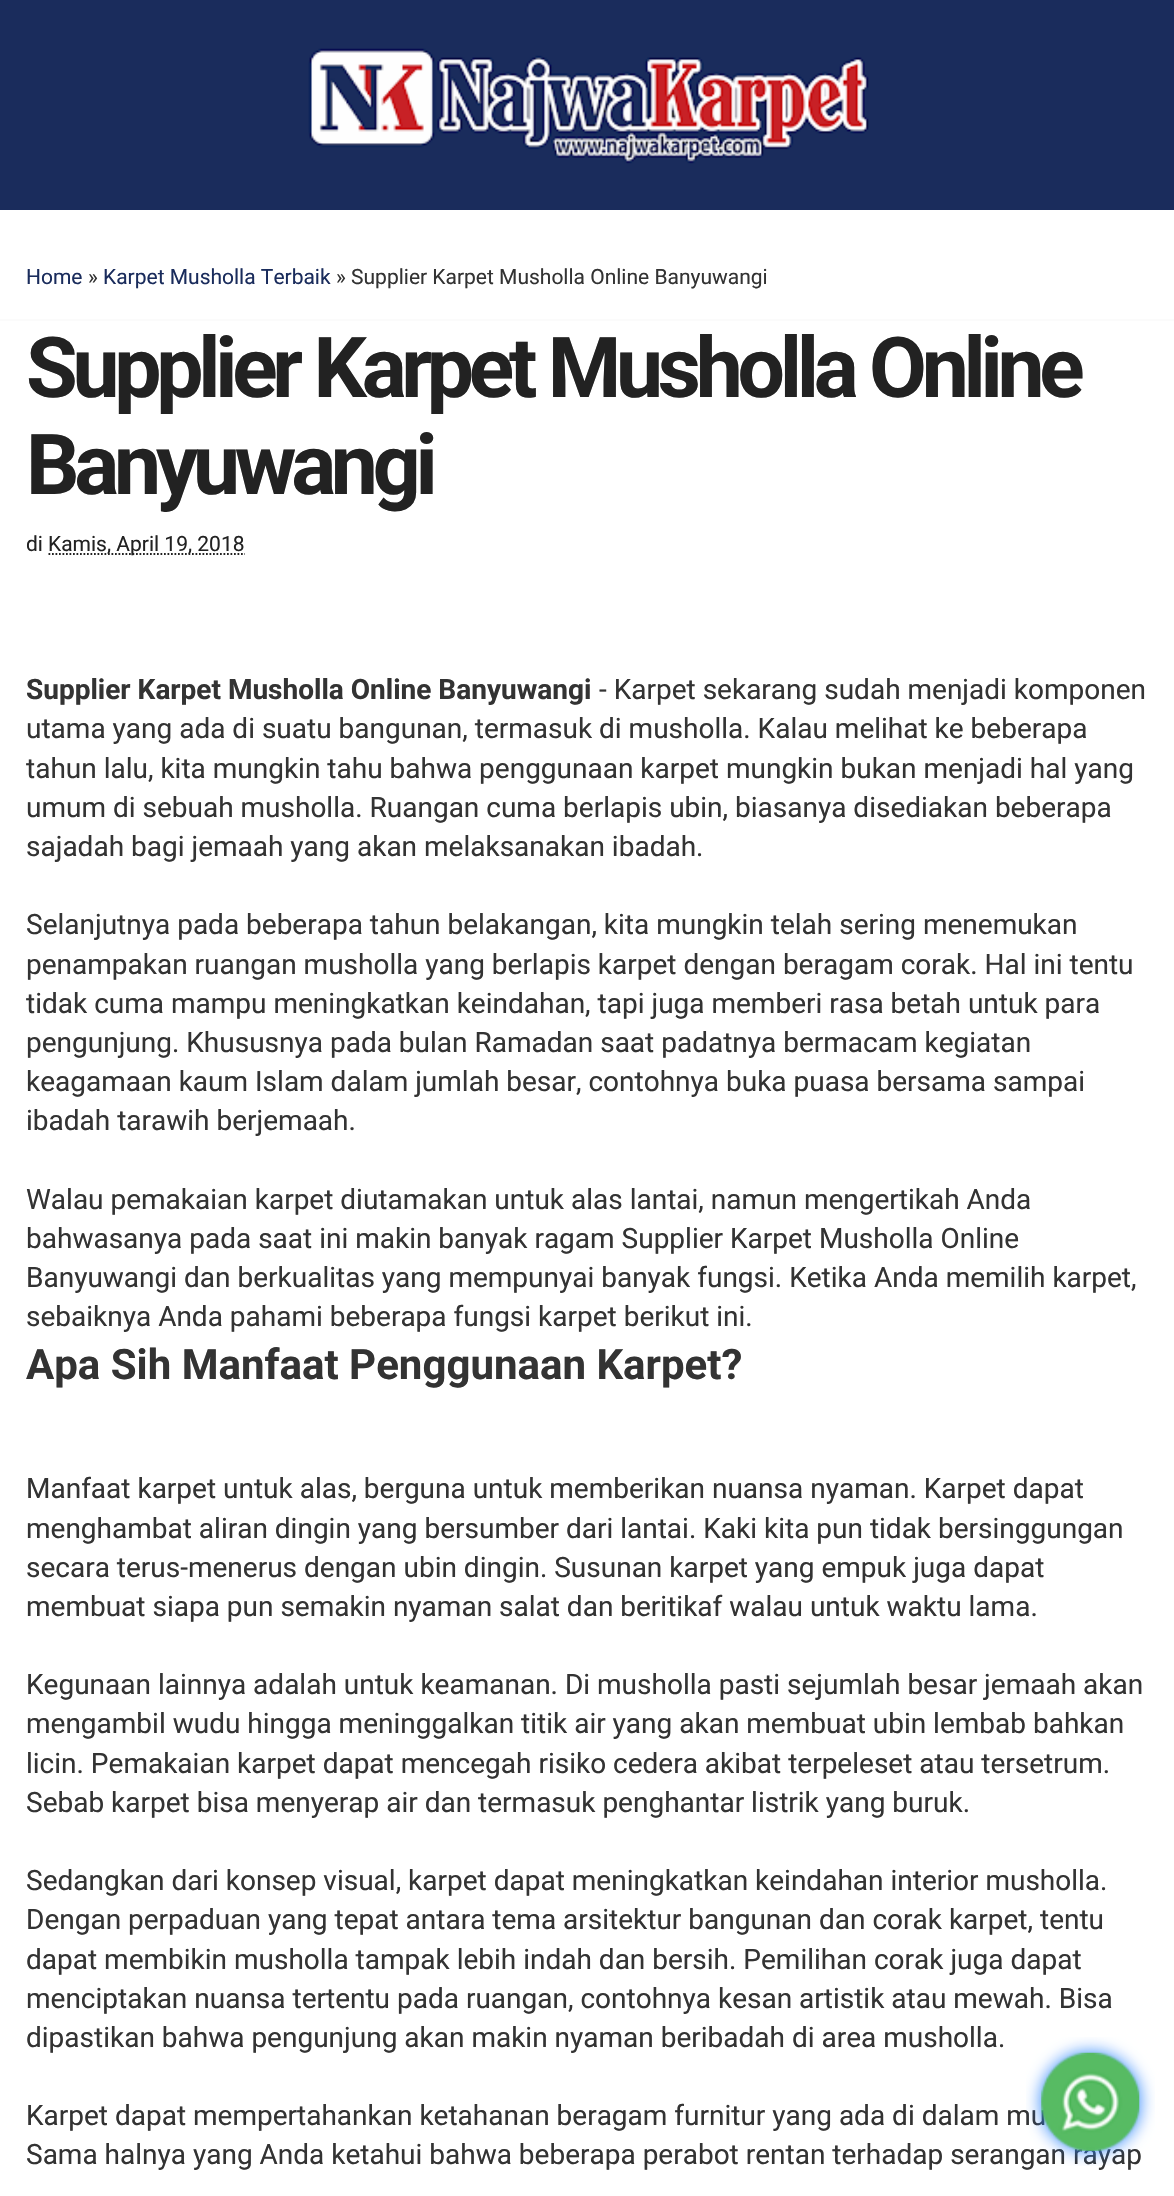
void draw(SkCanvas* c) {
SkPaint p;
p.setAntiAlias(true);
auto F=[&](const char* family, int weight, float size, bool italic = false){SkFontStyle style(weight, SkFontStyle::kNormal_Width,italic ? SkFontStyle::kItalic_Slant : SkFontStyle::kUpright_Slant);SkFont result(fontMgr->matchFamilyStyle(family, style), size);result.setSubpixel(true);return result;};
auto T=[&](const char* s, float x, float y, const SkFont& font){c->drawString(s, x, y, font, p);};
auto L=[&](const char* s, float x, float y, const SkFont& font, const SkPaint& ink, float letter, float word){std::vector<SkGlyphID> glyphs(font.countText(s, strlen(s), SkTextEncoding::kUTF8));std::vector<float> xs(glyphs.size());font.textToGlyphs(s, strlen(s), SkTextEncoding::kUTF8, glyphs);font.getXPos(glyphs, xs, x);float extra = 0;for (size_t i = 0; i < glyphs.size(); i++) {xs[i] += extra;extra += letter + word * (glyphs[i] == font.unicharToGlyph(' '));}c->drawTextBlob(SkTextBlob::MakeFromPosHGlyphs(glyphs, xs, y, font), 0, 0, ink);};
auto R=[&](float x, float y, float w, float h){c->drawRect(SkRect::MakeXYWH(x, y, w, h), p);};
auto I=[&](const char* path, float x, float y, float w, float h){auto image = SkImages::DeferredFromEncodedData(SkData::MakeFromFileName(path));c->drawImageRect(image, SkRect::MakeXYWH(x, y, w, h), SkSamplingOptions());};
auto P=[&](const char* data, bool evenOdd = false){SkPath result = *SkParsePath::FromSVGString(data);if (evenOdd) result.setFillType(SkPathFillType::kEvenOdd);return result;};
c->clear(0xff1a2c5c);
I("1.png",308,48,561,116);
p.setColor(0xffffffff);
R(0,210,1174,1986);
p.setColor(0xfffbfbfb);
R(0,319,1174,2);
auto f1 = F("Roboto",400,21);
p.setColor(0xff1a2c5c);
T("Home",26,284,f1);
p.setColor(0xff333333);
T("»",88,284,f1);
p.setColor(0xff1a2c5c);
T("Karpet Musholla Terbaik",103,284,f1);
p.setColor(0xff333333);
T("» Supplier Karpet Musholla Online Banyuwangi",336,284,f1);
auto f2 = F("Roboto",700,84);
p.setColor(0xff222222);
L("Supplier Karpet Musholla Online",26,397,f2,p,-5.25,0);
L("Banyuwangi",26,494,f2,p,-5.25,0);
T("di",26,551,f1);
p.setStroke(true);
p.setStrokeWidth(1.8);
p.setPathEffect(SkDashPathEffect::Make({{1.75f,1.75f}}, 0));
c->drawPath(P("M48.5 554h196.5"),p);
p.setPathEffect(nullptr);
p.setStroke(false);
T("Kamis, April 19, 2018",48,551,f1);
auto f3 = F("Roboto",700,28);
p.setColor(0xff333333);
T("Supplier Karpet Musholla Online Banyuwangi",26,699,f3);
auto f4 = F("Roboto",400,28);
T("- Karpet sekarang sudah menjadi komponen",599,699,f4);
T("utama yang ada di suatu bangunan, termasuk di musholla. Kalau melihat ke beberapa",26,738,f4);
T("tahun lalu, kita mungkin tahu bahwa penggunaan karpet mungkin bukan menjadi hal yang",26,778,f4);
T("umum di sebuah musholla. Ruangan cuma berlapis ubin, biasanya disediakan beberapa",26,817,f4);
T("sajadah bagi jemaah yang akan melaksanakan ibadah.",26,856,f4);
T("Selanjutnya pada beberapa tahun belakangan, kita mungkin telah sering menemukan",26,934,f4);
T("penampakan ruangan musholla yang berlapis karpet dengan beragam corak. Hal ini tentu",26,974,f4);
T("tidak cuma mampu meningkatkan keindahan, tapi juga memberi rasa betah untuk para",26,1013,f4);
T("pengunjung. Khususnya pada bulan Ramadan saat padatnya bermacam kegiatan",26,1052,f4);
T("keagamaan kaum Islam dalam jumlah besar, contohnya buka puasa bersama sampai",26,1091,f4);
T("ibadah tarawih berjemaah.",26,1130,f4);
T("Walau pemakaian karpet diutamakan untuk alas lantai, namun mengertikah Anda",26,1209,f4);
T("bahwasanya pada saat ini makin banyak ragam Supplier Karpet Musholla Online",26,1248,f4);
T("Banyuwangi dan berkualitas yang mempunyai banyak fungsi. Ketika Anda memilih karpet,",26,1287,f4);
T("sebaiknya Anda pahami beberapa fungsi karpet berikut ini.",26,1326,f4);
auto f5 = F("Roboto",700,42);
T("Apa Sih Manfaat Penggunaan Karpet?",26,1379,f5);
T("Manfaat karpet untuk alas, berguna untuk memberikan nuansa nyaman. Karpet dapat",26,1498,f4);
T("menghambat aliran dingin yang bersumber dari lantai. Kaki kita pun tidak bersinggungan",26,1538,f4);
T("secara terus-menerus dengan ubin dingin. Susunan karpet yang empuk juga dapat",26,1577,f4);
T("membuat siapa pun semakin nyaman salat dan beritikaf walau untuk waktu lama.",26,1616,f4);
T("Kegunaan lainnya adalah untuk keamanan. Di musholla pasti sejumlah besar jemaah akan",26,1694,f4);
T("mengambil wudu hingga meninggalkan titik air yang akan membuat ubin lembab bahkan",26,1733,f4);
T("licin. Pemakaian karpet dapat mencegah risiko cedera akibat terpeleset atau tersetrum.",26,1773,f4);
T("Sebab karpet bisa menyerap air dan termasuk penghantar listrik yang buruk.",26,1812,f4);
T("Sedangkan dari konsep visual, karpet dapat meningkatkan keindahan interior musholla.",26,1890,f4);
T("Dengan perpaduan yang tepat antara tema arsitektur bangunan dan corak karpet, tentu",26,1929,f4);
T("dapat membikin musholla tampak lebih indah dan bersih. Pemilihan corak juga dapat",26,1969,f4);
T("menciptakan nuansa tertentu pada ruangan, contohnya kesan artistik atau mewah. Bisa",26,2008,f4);
T("dipastikan bahwa pengunjung akan makin nyaman beribadah di area musholla.",26,2047,f4);
T("Karpet dapat mempertahankan ketahanan beragam furnitur yang ada di dalam mu",26,2125,f4);
T("Sama halnya yang Anda ketahui bahwa beberapa perabot rentan terhadap serangan rayap",26,2164,f4);
I("2.png",1026,2037,129,129);
}
